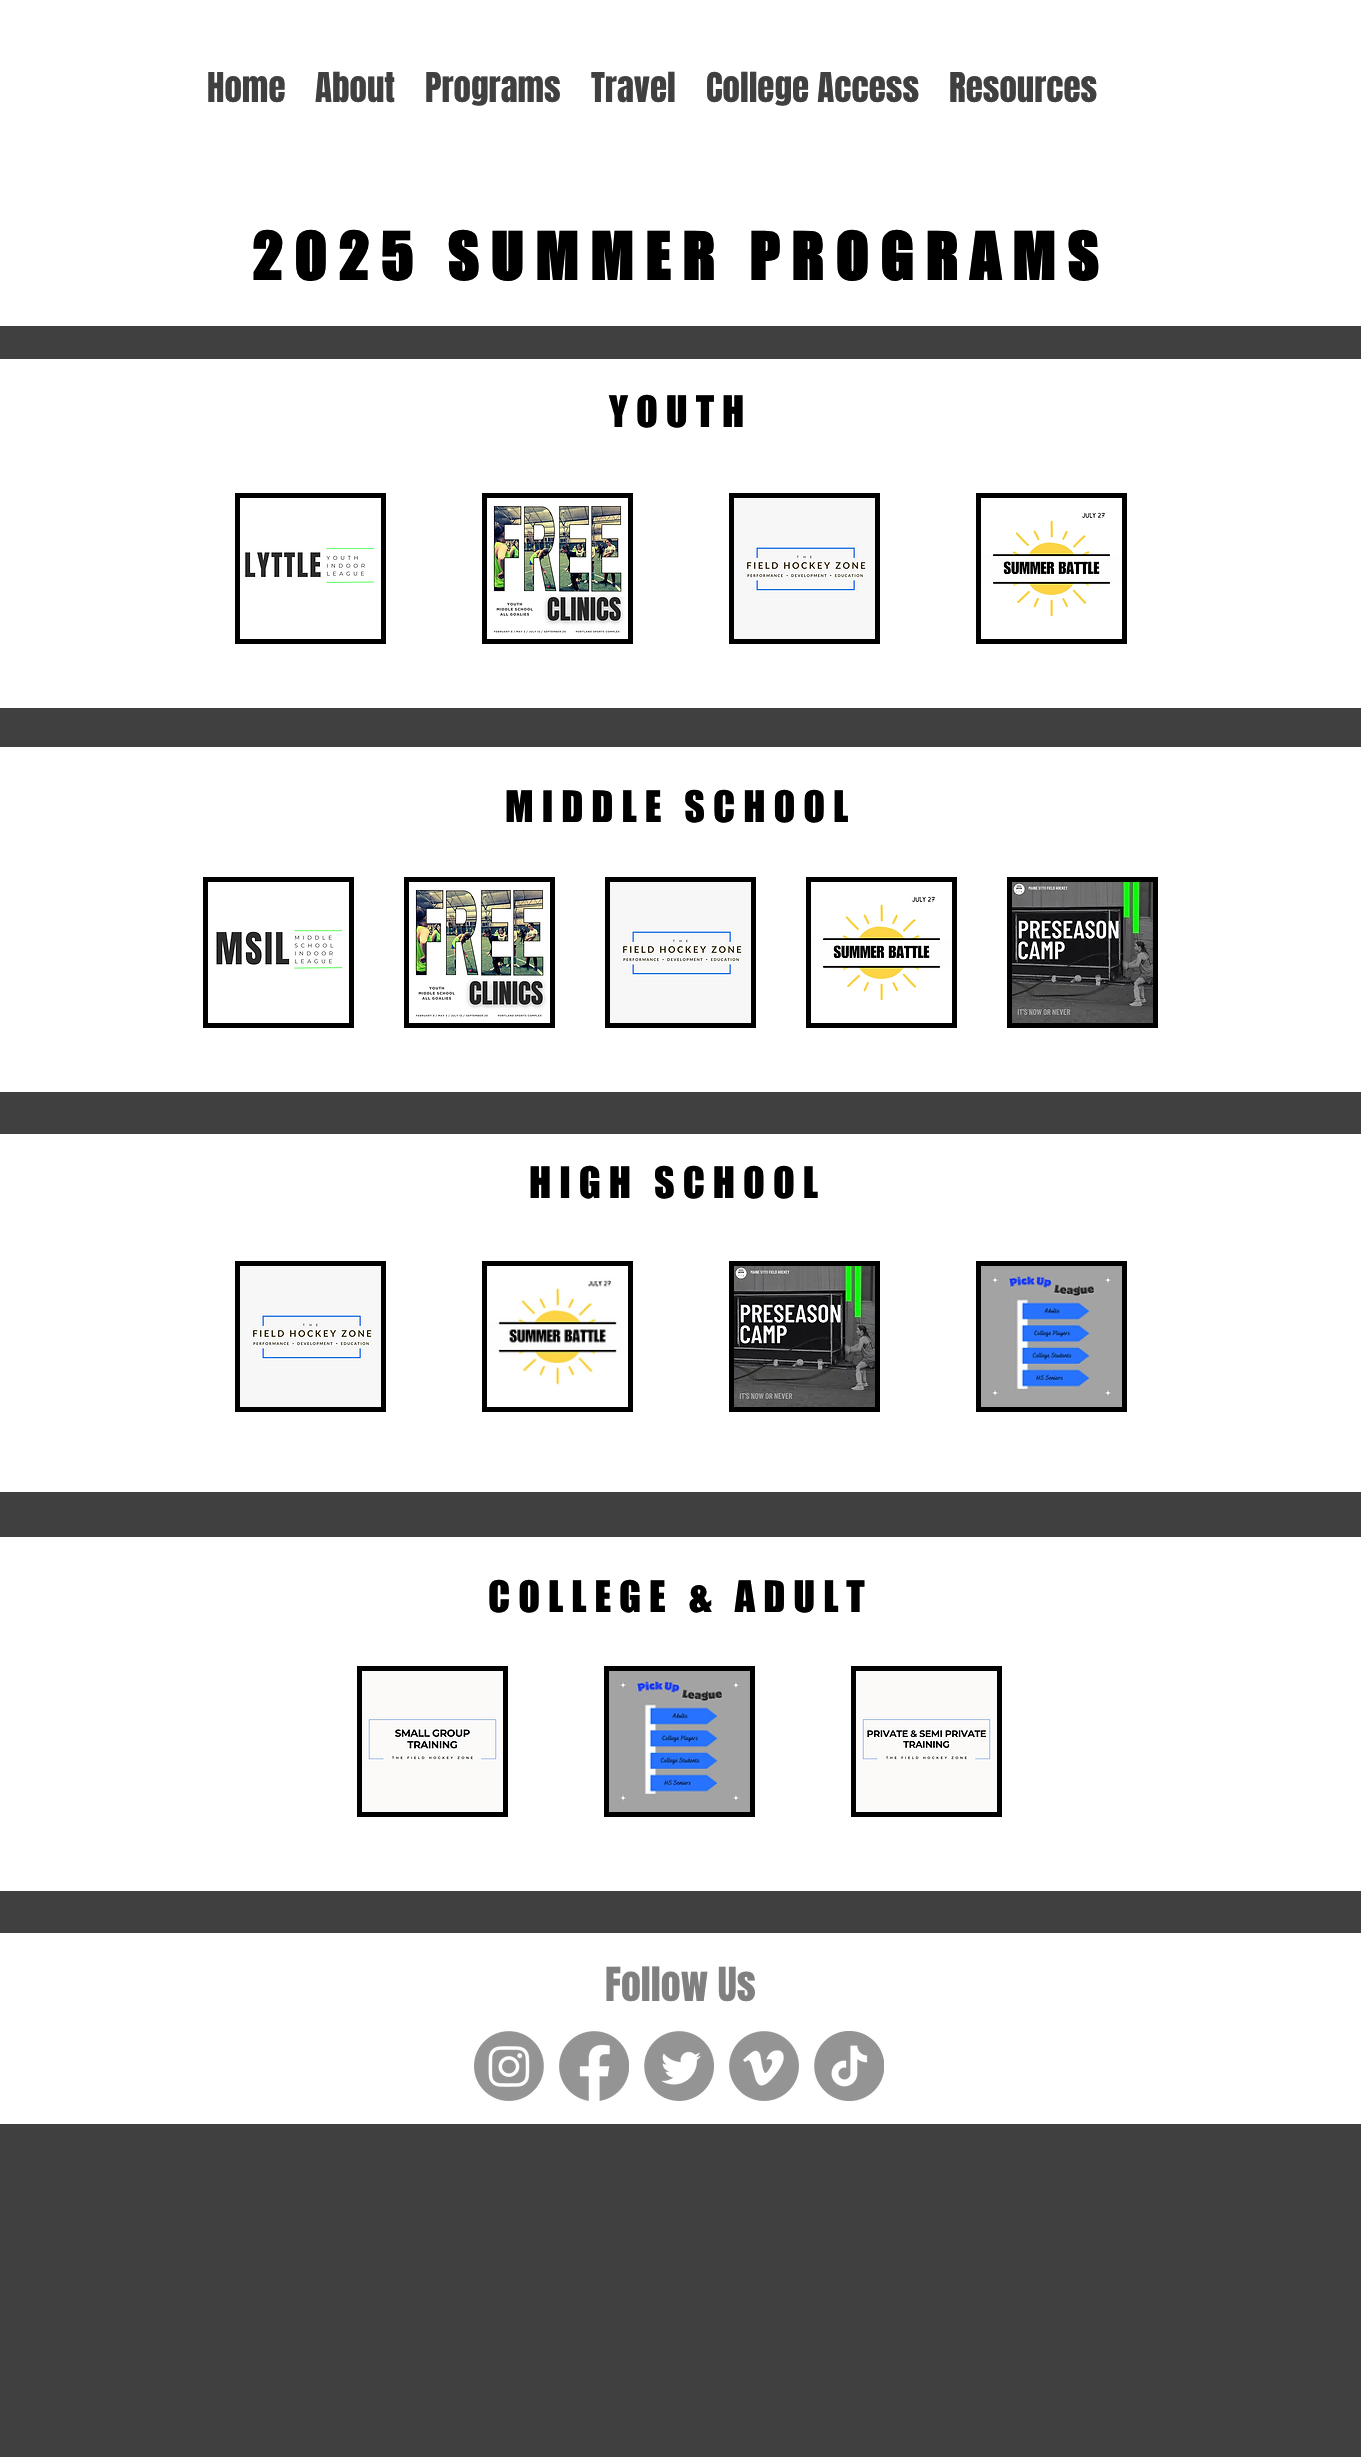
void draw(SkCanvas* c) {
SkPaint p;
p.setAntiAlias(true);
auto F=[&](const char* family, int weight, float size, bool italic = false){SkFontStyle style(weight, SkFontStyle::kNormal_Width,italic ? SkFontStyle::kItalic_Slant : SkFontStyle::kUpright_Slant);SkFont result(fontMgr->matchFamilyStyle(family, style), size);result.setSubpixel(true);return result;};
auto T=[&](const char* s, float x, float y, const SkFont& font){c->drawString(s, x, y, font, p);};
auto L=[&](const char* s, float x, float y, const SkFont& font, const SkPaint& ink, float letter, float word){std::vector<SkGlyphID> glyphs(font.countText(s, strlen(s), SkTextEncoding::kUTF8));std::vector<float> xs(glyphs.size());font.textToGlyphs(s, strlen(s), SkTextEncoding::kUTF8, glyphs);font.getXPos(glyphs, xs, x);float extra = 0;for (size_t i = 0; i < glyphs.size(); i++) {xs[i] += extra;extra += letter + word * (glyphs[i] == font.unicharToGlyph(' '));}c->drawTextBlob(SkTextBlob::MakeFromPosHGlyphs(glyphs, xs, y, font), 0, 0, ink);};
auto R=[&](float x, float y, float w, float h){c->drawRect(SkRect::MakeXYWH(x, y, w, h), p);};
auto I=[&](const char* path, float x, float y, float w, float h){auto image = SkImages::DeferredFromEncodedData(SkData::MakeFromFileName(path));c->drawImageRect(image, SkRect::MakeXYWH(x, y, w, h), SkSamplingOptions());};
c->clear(0xff404040);
p.setColor(0xffffffff);
R(0,0,1361,326);
auto f1 = F("Anton",400,35);
p.setColor(0xff404040);
T("Home",207,102,f1);
T("About",315,102,f1);
T("Programs",425,102,f1);
T("Travel",591,102,f1);
T("College Access",706,102,f1);
T("Resources",949,102,f1);
auto f2 = F("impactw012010",700,60);
p.setColor(0xff000000);
L("2025 SUMMER PROGRAMS",252,280,f2,p,12,0);
p.setColor(0xffffffff);
R(0,359,1361,349);
auto f3 = F("impactw012010",400,40);
p.setColor(0xff000000);
L("YOUTH",609,427,f3,p,8,0);
R(235,493,151,151);
I("1.png",240,498,141,141);
R(482,493,151,151);
I("2.png",487,498,141,141);
R(729,493,151,151);
I("3.png",734,498,141,141);
R(976,493,151,151);
I("4.png",981,498,141,141);
p.setColor(0xffffffff);
R(0,747,1361,345);
p.setColor(0xff000000);
L("MIDDLE SCHOOL",505,822,f3,p,8,0);
R(203,877,151,151);
I("5.png",208,882,141,141);
R(404,877,151,151);
I("2.png",409,882,141,141);
R(605,877,151,151);
I("3.png",610,882,141,141);
R(806,877,151,151);
I("4.png",811,882,141,141);
R(1007,877,151,151);
I("6.png",1012,882,141,141);
p.setColor(0xffffffff);
R(0,1134,1361,358);
p.setColor(0xff000000);
L("HIGH SCHOOL",529,1198,f3,p,8,0);
R(235,1261,151,151);
I("3.png",240,1266,141,141);
R(482,1261,151,151);
I("7.png",487,1266,141,141);
R(729,1261,151,151);
I("6.png",734,1266,141,141);
R(976,1261,151,151);
I("8.png",981,1266,141,141);
p.setColor(0xffffffff);
R(0,1537,1361,354);
p.setColor(0xff000000);
L("COLLEGE & ADULT",488,1612,f3,p,8,0);
R(357,1666,151,151);
I("9.png",362,1671,141,141);
R(604,1666,151,151);
I("8.png",609,1671,141,141);
R(851,1666,151,151);
I("10.png",856,1671,141,141);
p.setColor(0xffffffff);
R(0,1933,1361,191);
auto f4 = F("Anton",400,40);
p.setColor(0xff808080);
T("Follow Us",605,2001,f4);
I("11.png",474,2031,70,70);
I("12.png",559,2031,70,70);
I("13.png",644,2031,70,70);
I("14.png",729,2031,70,70);
I("15.png",814,2031,70,70);
}
